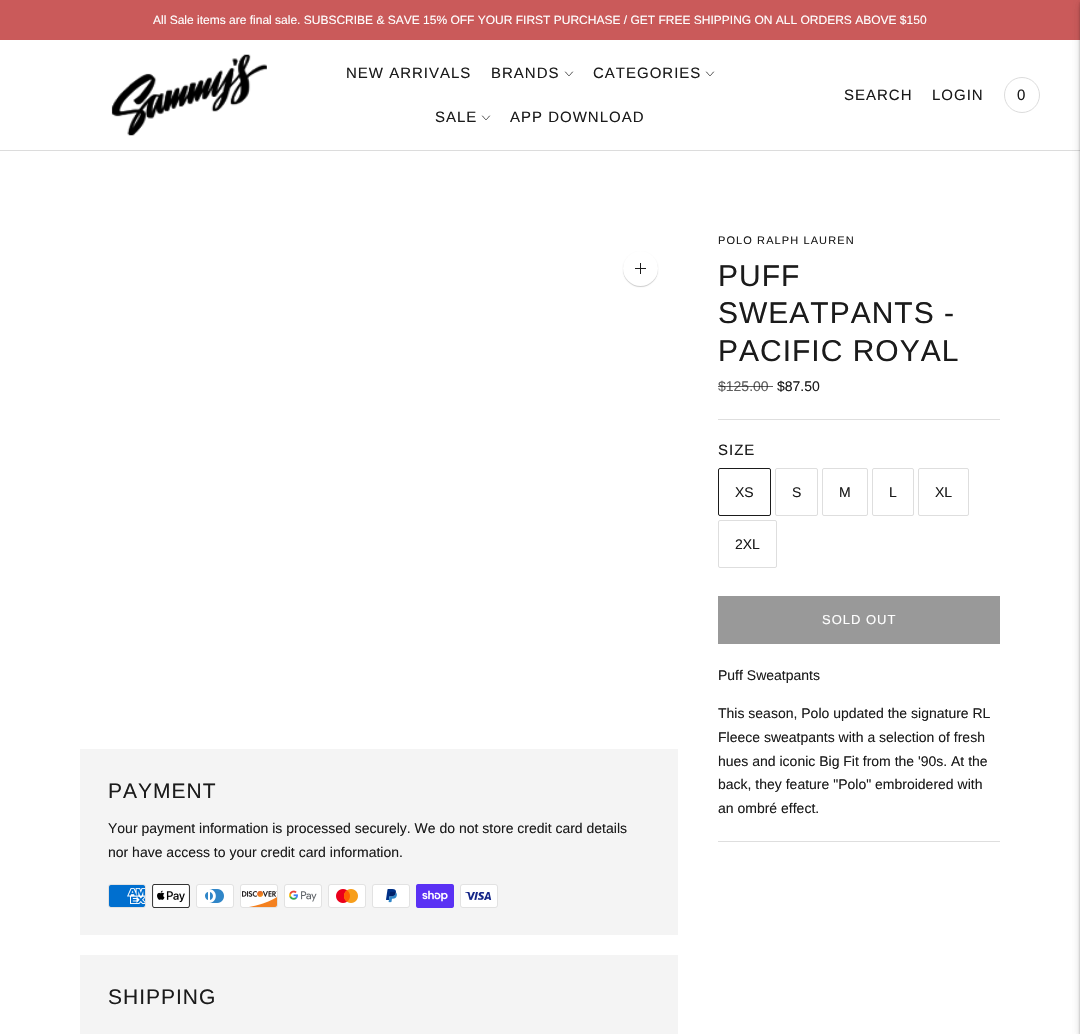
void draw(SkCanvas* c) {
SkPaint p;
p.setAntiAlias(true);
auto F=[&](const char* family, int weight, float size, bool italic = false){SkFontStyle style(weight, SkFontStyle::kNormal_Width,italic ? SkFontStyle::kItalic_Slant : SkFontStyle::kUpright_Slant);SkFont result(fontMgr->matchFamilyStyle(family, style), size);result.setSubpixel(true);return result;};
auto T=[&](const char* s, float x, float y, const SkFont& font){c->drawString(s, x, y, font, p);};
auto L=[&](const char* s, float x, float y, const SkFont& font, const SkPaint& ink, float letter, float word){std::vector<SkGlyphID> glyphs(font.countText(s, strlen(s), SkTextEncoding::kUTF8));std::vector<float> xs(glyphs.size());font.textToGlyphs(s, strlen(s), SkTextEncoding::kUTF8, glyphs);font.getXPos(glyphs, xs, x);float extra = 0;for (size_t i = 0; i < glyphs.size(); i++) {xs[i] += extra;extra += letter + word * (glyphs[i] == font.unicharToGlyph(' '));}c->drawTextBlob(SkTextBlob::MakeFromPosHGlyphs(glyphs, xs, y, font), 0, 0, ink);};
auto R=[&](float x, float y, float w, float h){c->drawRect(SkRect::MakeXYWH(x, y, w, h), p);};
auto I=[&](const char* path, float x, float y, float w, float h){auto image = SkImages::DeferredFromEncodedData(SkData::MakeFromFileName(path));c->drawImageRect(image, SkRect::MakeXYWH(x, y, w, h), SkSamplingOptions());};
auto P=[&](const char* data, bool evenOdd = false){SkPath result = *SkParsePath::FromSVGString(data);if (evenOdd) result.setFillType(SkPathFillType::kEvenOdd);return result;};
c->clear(0xffffffff);
p.setColor(0xffca5a5a);
R(0,0,1080,40);
auto f1 = F("Liberation Sans",400,12);
p.setColor(0xffffffff);
T("All Sale items are final sale. SUBSCRIBE & SAVE 15% OFF YOUR FIRST PURCHASE / GET FREE SHIPPING ON ALL ORDERS ABOVE $150",153,24,f1);
p.setColor(0xffdcdcdc);
R(0,150,1080,1);
I("1.png",111,54,156,82);
auto f2 = F("Liberation Sans",400,15);
p.setColor(0xff1b1b1b);
L("NEW ARRIVALS",346,78,f2,p,1,0);
L("BRANDS",491,78,f2,p,1,0);
p.setStroke(true);
p.setStrokeWidth(.8);
p.setStrokeCap(SkPaint::kRound_Cap);
p.setStrokeJoin(SkPaint::kRound_Join);
p.setColor(0xff171717);
c->drawPath(P("M565.5 72c4.5 5 2.5 5 7 0"),p);
p.setStroke(false);
p.setColor(0xff1b1b1b);
L("CATEGORIES",593,78,f2,p,1,0);
p.setStroke(true);
p.setColor(0xff171717);
c->drawPath(P("M706.5 72c4.5 5 2.5 5 7 0"),p);
p.setStroke(false);
p.setColor(0xff1b1b1b);
L("SALE",435,122,f2,p,1,0);
p.setStroke(true);
p.setColor(0xff171717);
c->drawPath(P("M482.5 116c4.5 5 2.5 5 7 0"),p);
p.setStroke(false);
p.setColor(0xff1b1b1b);
L("APP DOWNLOAD",510,122,f2,p,1,0);
L("SEARCH",844,100,f2,p,1,0);
L("LOGIN",932,100,f2,p,1,0);
p.setStroke(true);
p.setStrokeWidth(1);
p.setStrokeCap(SkPaint::kButt_Cap);
p.setStrokeJoin(SkPaint::kMiter_Join);
p.setColor(0xffdcdcdc);
c->drawCircle(1022,95,17.5,p);
p.setStroke(false);
p.setColor(0xff1b1b1b);
L("0",1017,100,f2,p,1,0);
p.setColor(0x1a000000);
p.setMaskFilter(SkMaskFilter::MakeBlur(kNormal_SkBlurStyle, 3));
c->drawRect(SkRect::MakeXYWH(1080,4,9,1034),p);
p.setMaskFilter(nullptr);
p.setColor(0x26000000);
p.setMaskFilter(SkMaskFilter::MakeBlur(kNormal_SkBlurStyle, 1));
c->drawRect(SkRect::MakeXYWH(1080,2,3,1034),p);
p.setMaskFilter(nullptr);
auto f3 = F("Liberation Sans",400,11);
p.setColor(0xff1b1b1b);
L("POLO RALPH LAUREN",718,244,f3,p,1.1,0);
auto f4 = F("Liberation Sans",400,30);
L("PUFF",718,286,f4,p,1,0);
L("SWEATPANTS -",718,323,f4,p,1,0);
L("PACIFIC ROYAL",718,361,f4,p,1,0);
auto f5 = F("Liberation Sans",400,14);
p.setColor(0xff5f5f5f);
T("$125.00",718,391,f5);
p.setColor(0xb31b1b1b);
R(718,386,55,1);
p.setColor(0xff1b1b1b);
T("$87.50",777,391,f5);
p.setColor(0xffdedede);
R(718,419,282,1);
p.setColor(0xff1b1b1b);
L("SIZE",718,455,f2,p,1,0);
p.setStroke(true);
c->drawRoundRect(SkRect::MakeXYWH(718.5,468.5,52,47),1.5,1.5,p);
p.setStroke(false);
T("XS",735,497,f5);
p.setStroke(true);
p.setColor(0xffdedede);
c->drawRoundRect(SkRect::MakeXYWH(775.5,468.5,42,47),1.5,1.5,p);
p.setStroke(false);
p.setColor(0xff1b1b1b);
T("S",792,497,f5);
p.setStroke(true);
p.setColor(0xffdedede);
c->drawRoundRect(SkRect::MakeXYWH(822.5,468.5,45,47),1.5,1.5,p);
p.setStroke(false);
p.setColor(0xff1b1b1b);
T("M",839,497,f5);
p.setStroke(true);
p.setColor(0xffdedede);
c->drawRoundRect(SkRect::MakeXYWH(872.5,468.5,41,47),1.5,1.5,p);
p.setStroke(false);
p.setColor(0xff1b1b1b);
T("L",889,497,f5);
p.setStroke(true);
p.setColor(0xffdedede);
c->drawRoundRect(SkRect::MakeXYWH(918.5,468.5,50,47),1.5,1.5,p);
p.setStroke(false);
p.setColor(0xff1b1b1b);
T("XL",935,497,f5);
p.setStroke(true);
p.setColor(0xffdedede);
c->drawRoundRect(SkRect::MakeXYWH(718.5,520.5,58,47),1.5,1.5,p);
p.setStroke(false);
p.setColor(0xff1b1b1b);
T("2XL",735,549,f5);
p.setColor(0xff999999);
R(718,596,282,48);
auto f6 = F("Liberation Sans",400,13);
p.setColor(0xffffffff);
L("SOLD OUT",822,624,f6,p,1,0);
p.setColor(0xff1b1b1b);
T("Puff Sweatpants",718,680,f5);
T("This season, Polo updated the signature RL",718,718,f5);
T("Fleece sweatpants with a selection of fresh",718,742,f5);
T("hues and iconic Big Fit from the '90s. At the",718,766,f5);
T("back, they feature \"Polo\" embroidered with",718,789,f5);
T("an ombré effect.",718,813,f5);
p.setColor(0xffdedede);
R(718,841,282,1);
p.setColor(0x1a000000);
p.setMaskFilter(SkMaskFilter::MakeBlur(kNormal_SkBlurStyle, 3));
c->drawRect(SkRect::MakeXYWH(1080,4,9,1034),p);
p.setMaskFilter(nullptr);
p.setColor(0x26000000);
p.setMaskFilter(SkMaskFilter::MakeBlur(kNormal_SkBlurStyle, 1));
c->drawRect(SkRect::MakeXYWH(1080,2,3,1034),p);
p.setMaskFilter(nullptr);
p.setColor(0x33000000);
p.setMaskFilter(SkMaskFilter::MakeBlur(kNormal_SkBlurStyle, .5));
c->drawRoundRect(SkRect::MakeXYWH(623,252,35,35),17.5,17.5,p);
p.setMaskFilter(nullptr);
p.setColor(0xffffffff);
c->drawCircle(640.5,268.5,17.5,p);
p.setStroke(true);
p.setColor(0xff1b1b1b);
c->drawPath(P("M640.5 263v11m-5.5-5.5h11"),p);
p.setStroke(false);
p.setColor(0xfff4f4f4);
R(80,749,598,186);
auto f7 = F("Liberation Sans",400,21);
p.setColor(0xff1b1b1b);
L("PAYMENT",108,798,f7,p,1,0);
T("Your payment information is processed securely. We do not store credit card details",108,833,f5);
T("nor have access to your credit card information.",108,857,f5);
I("2.png",108,884,38,24);
I("3.png",152,884,38,24);
I("4.png",196,884,38,24);
I("5.png",240,884,38,24);
I("6.png",284,884,38,24);
I("7.png",328,884,38,24);
I("8.png",372,884,38,24);
I("9.png",416,884,38,24);
I("10.png",460,884,38,24);
p.setColor(0xfff4f4f4);
R(80,955,598,79);
p.setColor(0xff1b1b1b);
L("SHIPPING",108,1004,f7,p,1,0);
}
